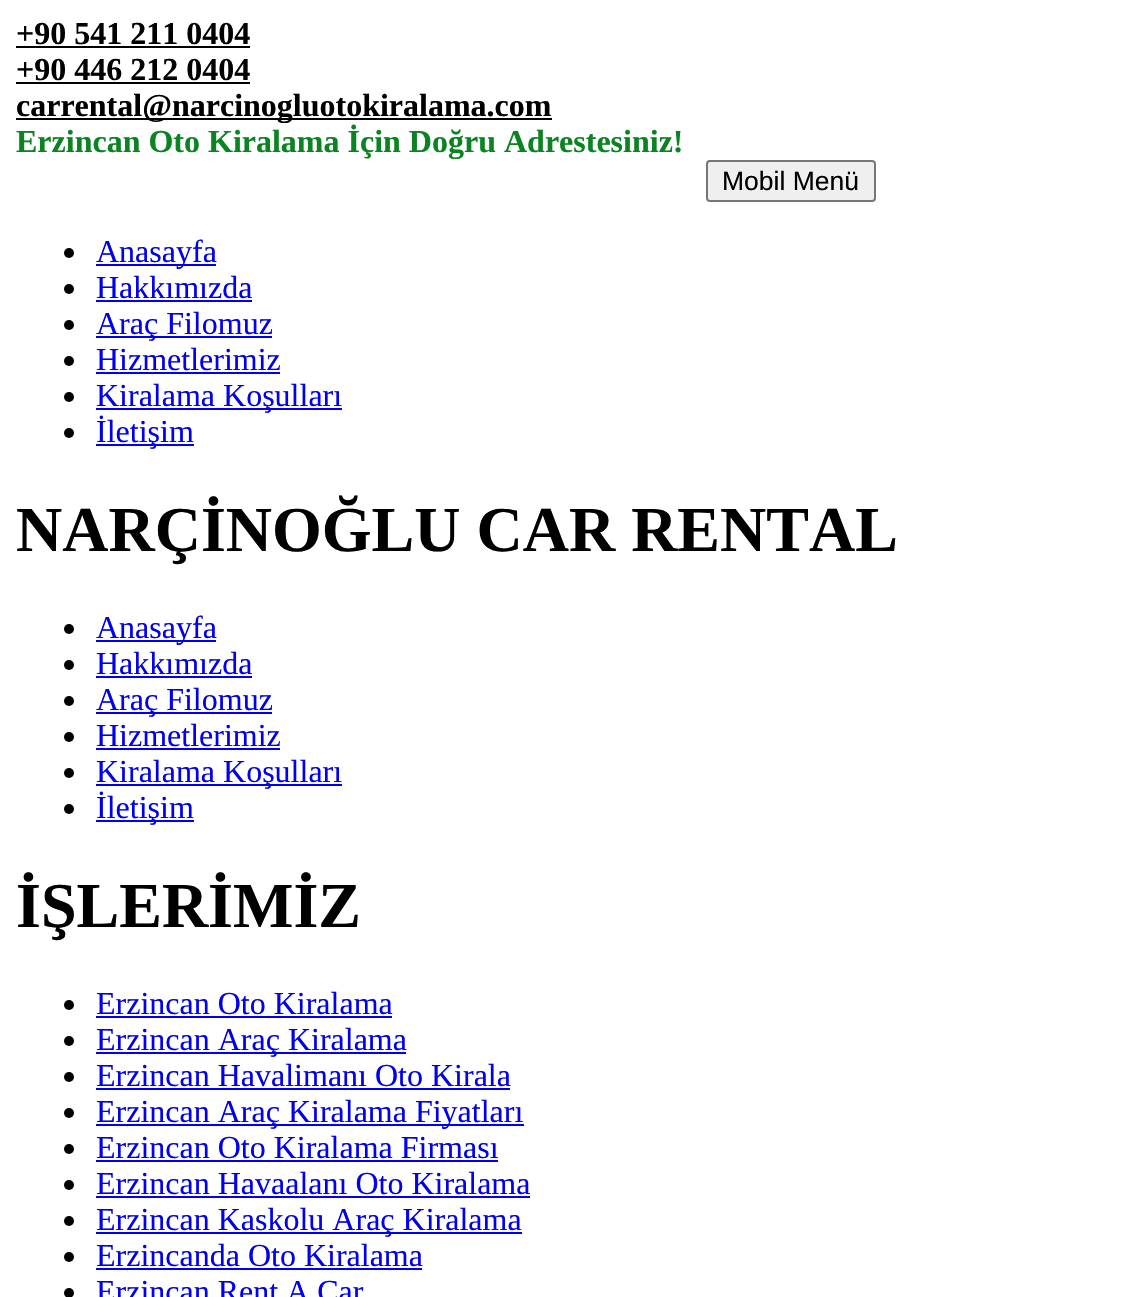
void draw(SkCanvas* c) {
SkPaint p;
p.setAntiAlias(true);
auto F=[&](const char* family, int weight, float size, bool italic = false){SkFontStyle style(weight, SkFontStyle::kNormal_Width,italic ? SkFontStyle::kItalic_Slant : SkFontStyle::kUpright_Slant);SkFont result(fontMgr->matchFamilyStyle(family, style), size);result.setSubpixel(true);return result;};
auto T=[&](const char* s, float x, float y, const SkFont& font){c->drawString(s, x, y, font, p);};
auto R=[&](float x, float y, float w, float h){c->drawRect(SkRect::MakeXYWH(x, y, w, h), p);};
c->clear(0xffffffff);
auto f1 = F("Liberation Serif",700,32);
p.setColor(0xff000000);
T("+90 541 211 0404",16,44,f1);
R(16,46,234,2);
T("+90 446 212 0404",16,80,f1);
R(16,82,234,2);
R(16,118,536,2);
T("carrental@narcinogluotokiralama.com",16,116,f1);
p.setColor(0xff0a8321);
T("Erzincan Oto Kiralama İçin Doğru Adrestesiniz!",16,152,f1);
p.setColor(0xffefefef);
c->drawRoundRect(SkRect::MakeXYWH(707,161,168,40),3,3,p);
p.setStroke(true);
p.setStrokeWidth(2);
p.setColor(0xff767676);
c->drawRoundRect(SkRect::MakeXYWH(707,161,168,40),3,3,p);
auto f2 = F("Liberation Sans",400,26.5);
p.setStroke(false);
p.setColor(0xff000000);
T("Mobil Menü",722,190,f2);
c->drawCircle(69,253,5,p);
p.setColor(0xff0000ee);
R(96,264,120,2);
auto f3 = F("Liberation Serif",400,32);
T("Anasayfa",96,262,f3);
p.setColor(0xff000000);
c->drawCircle(69,289,5,p);
p.setColor(0xff0000ee);
T("Hakkımızda",96,298,f3);
R(96,300,156,2);
p.setColor(0xff000000);
c->drawCircle(69,325,5,p);
p.setColor(0xff0000ee);
R(96,336,176,2);
T("Araç Filomuz",96,334,f3);
p.setColor(0xff000000);
c->drawCircle(69,361,5,p);
p.setColor(0xff0000ee);
T("Hizmetlerimiz",96,370,f3);
R(96,372,184,2);
p.setColor(0xff000000);
c->drawCircle(69,397,5,p);
p.setColor(0xff0000ee);
R(96,408,246,2);
T("Kiralama Koşulları",96,406,f3);
p.setColor(0xff000000);
c->drawCircle(69,433,5,p);
p.setColor(0xff0000ee);
R(96,444,98,2);
T("İletişim",96,442,f3);
auto f4 = F("Liberation Serif",700,64);
p.setColor(0xff000000);
T("NARÇİNOĞLU CAR RENTAL",16,551,f4);
c->drawCircle(69,629,5,p);
p.setColor(0xff0000ee);
R(96,640,120,2);
T("Anasayfa",96,638,f3);
p.setColor(0xff000000);
c->drawCircle(69,665,5,p);
p.setColor(0xff0000ee);
T("Hakkımızda",96,674,f3);
R(96,676,156,2);
p.setColor(0xff000000);
c->drawCircle(69,701,5,p);
p.setColor(0xff0000ee);
R(96,712,176,2);
T("Araç Filomuz",96,710,f3);
p.setColor(0xff000000);
c->drawCircle(69,737,5,p);
p.setColor(0xff0000ee);
T("Hizmetlerimiz",96,746,f3);
R(96,748,184,2);
p.setColor(0xff000000);
c->drawCircle(69,773,5,p);
p.setColor(0xff0000ee);
R(96,784,246,2);
T("Kiralama Koşulları",96,782,f3);
p.setColor(0xff000000);
c->drawCircle(69,809,5,p);
p.setColor(0xff0000ee);
R(96,820,98,2);
T("İletişim",96,818,f3);
p.setColor(0xff000000);
T("İŞLERİMİZ",16,927,f4);
c->drawCircle(69,1005,5,p);
p.setColor(0xff0000ee);
T("Erzincan Oto Kiralama",96,1014,f3);
R(96,1016,296,2);
p.setColor(0xff000000);
c->drawCircle(69,1041,5,p);
p.setColor(0xff0000ee);
R(96,1052,310,2);
T("Erzincan Araç Kiralama",96,1050,f3);
p.setColor(0xff000000);
c->drawCircle(69,1077,5,p);
p.setColor(0xff0000ee);
T("Erzincan Havalimanı Oto Kirala",96,1086,f3);
R(96,1088,414,2);
p.setColor(0xff000000);
c->drawCircle(69,1113,5,p);
p.setColor(0xff0000ee);
R(96,1124,428,2);
T("Erzincan Araç Kiralama Fiyatları",96,1122,f3);
p.setColor(0xff000000);
c->drawCircle(69,1149,5,p);
p.setColor(0xff0000ee);
T("Erzincan Oto Kiralama Firması",96,1158,f3);
R(96,1160,402,2);
p.setColor(0xff000000);
c->drawCircle(69,1185,5,p);
p.setColor(0xff0000ee);
T("Erzincan Havaalanı Oto Kiralama",96,1194,f3);
R(96,1196,434,2);
p.setColor(0xff000000);
c->drawCircle(69,1221,5,p);
p.setColor(0xff0000ee);
R(96,1232,426,2);
T("Erzincan Kaskolu Araç Kiralama",96,1230,f3);
p.setColor(0xff000000);
c->drawCircle(69,1257,5,p);
p.setColor(0xff0000ee);
T("Erzincanda Oto Kiralama",96,1266,f3);
R(96,1268,326,2);
p.setColor(0xff000000);
c->drawCircle(69,1293,5,p);
p.setColor(0xff0000ee);
T("Erzincan Rent A Car",96,1302,f3);
}
